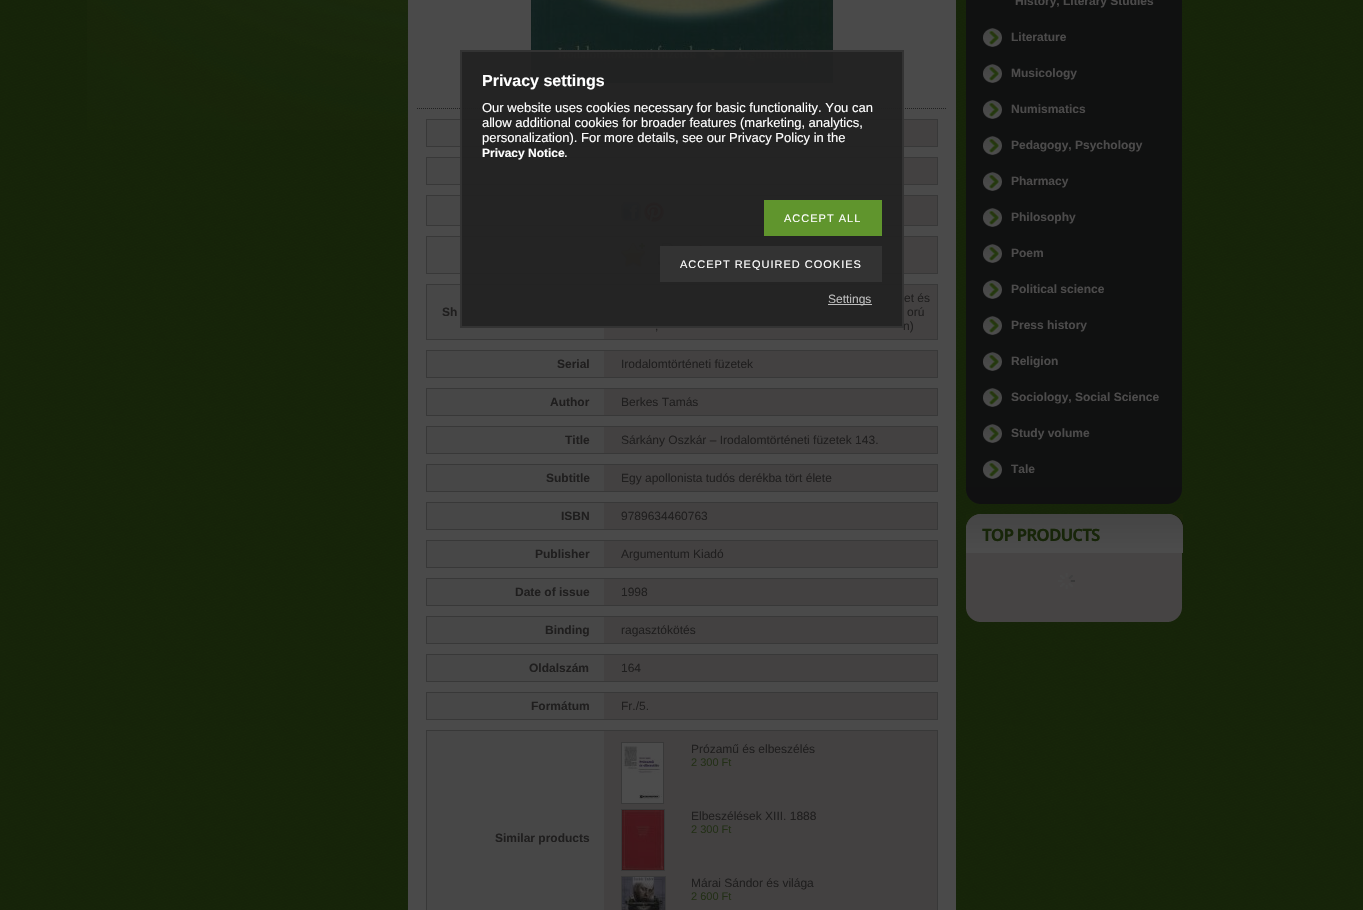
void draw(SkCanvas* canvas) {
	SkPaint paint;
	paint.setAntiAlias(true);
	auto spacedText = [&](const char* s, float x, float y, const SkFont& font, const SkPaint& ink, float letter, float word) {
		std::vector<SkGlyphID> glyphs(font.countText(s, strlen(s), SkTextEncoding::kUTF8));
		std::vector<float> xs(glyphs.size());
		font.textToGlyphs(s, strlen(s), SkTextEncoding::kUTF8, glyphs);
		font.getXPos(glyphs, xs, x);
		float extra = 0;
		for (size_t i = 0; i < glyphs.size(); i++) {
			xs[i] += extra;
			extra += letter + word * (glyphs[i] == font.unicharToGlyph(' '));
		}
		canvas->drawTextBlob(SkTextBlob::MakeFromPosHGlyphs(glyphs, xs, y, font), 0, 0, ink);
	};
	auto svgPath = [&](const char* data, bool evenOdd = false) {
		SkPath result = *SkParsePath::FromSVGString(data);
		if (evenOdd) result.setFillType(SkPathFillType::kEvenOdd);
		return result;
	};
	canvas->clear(0xffffffff);
	canvas->drawImageRect(SkImages::DeferredFromEncodedData(SkData::MakeFromFileName("img1.png")), SkRect::MakeXYWH(0, 0, 1363, 910), SkSamplingOptions());
	canvas->drawImageRect(SkImages::DeferredFromEncodedData(SkData::MakeFromFileName("img2.png")), SkRect::MakeXYWH(87, 0, 321, 130), SkSamplingOptions());
	paint.setColor(0xff4a4a4a);
	canvas->drawRect(SkRect::MakeXYWH(408, 0, 548, 910), paint);
	canvas->drawImageRect(SkImages::DeferredFromEncodedData(SkData::MakeFromFileName("img3.png")), SkRect::MakeXYWH(531, 0, 302, 83), SkSamplingOptions());
	paint.setStroke(true);
	paint.setStrokeWidth(1);
	paint.setColor(0xff202020);
	paint.setPathEffect(SkDashPathEffect::Make({{1, 1}}, 0));
	canvas->drawPath(svgPath("M417 108.5H947"), paint);
	paint.setPathEffect(nullptr);
	paint.setColor(0xff383838);
	canvas->drawRect(SkRect::MakeXYWH(426.5, 119.5, 511, 27), paint);
	paint.setStroke(false);
	paint.setColor(0xff474747);
	canvas->drawRect(SkRect::MakeXYWH(427, 120, 177, 26), paint);
	paint.setColor(0xff434141);
	canvas->drawRect(SkRect::MakeXYWH(604, 120, 333, 26), paint);
	paint.setStroke(true);
	paint.setColor(0xff383838);
	canvas->drawRect(SkRect::MakeXYWH(426.5, 157.5, 511, 27), paint);
	paint.setStroke(false);
	paint.setColor(0xff474747);
	canvas->drawRect(SkRect::MakeXYWH(427, 158, 177, 26), paint);
	paint.setColor(0xff434141);
	canvas->drawRect(SkRect::MakeXYWH(604, 158, 333, 26), paint);
	paint.setStroke(true);
	paint.setColor(0xff383838);
	canvas->drawRect(SkRect::MakeXYWH(426.5, 195.5, 511, 30), paint);
	paint.setStroke(false);
	paint.setColor(0xff474747);
	canvas->drawRect(SkRect::MakeXYWH(427, 196, 177, 29), paint);
	paint.setColor(0xff434141);
	canvas->drawRect(SkRect::MakeXYWH(604, 196, 333, 29), paint);
	canvas->drawImageRect(SkImages::DeferredFromEncodedData(SkData::MakeFromFileName("img4.png")), SkRect::MakeXYWH(621, 202, 20, 20), SkSamplingOptions());
	canvas->drawImageRect(SkImages::DeferredFromEncodedData(SkData::MakeFromFileName("img5.png")), SkRect::MakeXYWH(644, 202, 20, 20), SkSamplingOptions());
	paint.setStroke(true);
	paint.setColor(0xff383838);
	canvas->drawRect(SkRect::MakeXYWH(426.5, 236.5, 511, 37), paint);
	paint.setStroke(false);
	paint.setColor(0xff474747);
	canvas->drawRect(SkRect::MakeXYWH(427, 237, 177, 36), paint);
	paint.setColor(0xff434141);
	canvas->drawRect(SkRect::MakeXYWH(604, 237, 333, 36), paint);
	canvas->drawImageRect(SkImages::DeferredFromEncodedData(SkData::MakeFromFileName("img6.png")), SkRect::MakeXYWH(621, 243, 24, 24), SkSamplingOptions());
	canvas->drawImageRect(SkImages::DeferredFromEncodedData(SkData::MakeFromFileName("img7.png")), SkRect::MakeXYWH(658, 243, 15, 22), SkSamplingOptions());
	canvas->drawImageRect(SkImages::DeferredFromEncodedData(SkData::MakeFromFileName("img8.png")), SkRect::MakeXYWH(699, 245, 3, 1), SkSamplingOptions());
	paint.setStroke(true);
	paint.setColor(0xff383838);
	canvas->drawRect(SkRect::MakeXYWH(426.5, 284.5, 511, 55), paint);
	paint.setStroke(false);
	paint.setColor(0xff474747);
	canvas->drawRect(SkRect::MakeXYWH(427, 285, 177, 54), paint);
	SkFont f1(fontMgr->matchFamilyStyle("Liberation Sans", SkFontStyle::Bold()), 12);
	f1.setSubpixel(true);
	paint.setColor(0xff1f1e1e);
	canvas->drawString("Sh", 442, 316, f1, paint);
	paint.setColor(0xff434141);
	canvas->drawRect(SkRect::MakeXYWH(604, 285, 333, 54), paint);
	SkFont f2(fontMgr->matchFamilyStyle("Liberation Sans", SkFontStyle::Normal()), 12);
	f2.setSubpixel(true);
	paint.setColor(0xff1f1e1e);
	canvas->drawString("et és", 904, 302, f2, paint);
	canvas->drawString("orú", 907, 316, f2, paint);
	canvas->drawString(",", 655, 330, f2, paint);
	canvas->drawString("n)", 903, 330, f2, paint);
	paint.setStroke(true);
	paint.setColor(0xff383838);
	canvas->drawRect(SkRect::MakeXYWH(426.5, 350.5, 511, 27), paint);
	paint.setStroke(false);
	paint.setColor(0xff474747);
	canvas->drawRect(SkRect::MakeXYWH(427, 351, 177, 26), paint);
	paint.setColor(0xff1f1e1e);
	canvas->drawString("Serial", 557, 368, f1, paint);
	paint.setColor(0xff434141);
	canvas->drawRect(SkRect::MakeXYWH(604, 351, 333, 26), paint);
	paint.setColor(0xff1f1e1e);
	canvas->drawString("Irodalomtörténeti füzetek", 621, 368, f2, paint);
	paint.setStroke(true);
	paint.setColor(0xff383838);
	canvas->drawRect(SkRect::MakeXYWH(426.5, 388.5, 511, 27), paint);
	paint.setStroke(false);
	paint.setColor(0xff474747);
	canvas->drawRect(SkRect::MakeXYWH(427, 389, 177, 26), paint);
	paint.setColor(0xff1f1e1e);
	canvas->drawString("Author", 550, 406, f1, paint);
	paint.setColor(0xff434141);
	canvas->drawRect(SkRect::MakeXYWH(604, 389, 333, 26), paint);
	paint.setColor(0xff1f1e1e);
	canvas->drawString("Berkes Tamás", 621, 406, f2, paint);
	paint.setStroke(true);
	paint.setColor(0xff383838);
	canvas->drawRect(SkRect::MakeXYWH(426.5, 426.5, 511, 27), paint);
	paint.setStroke(false);
	paint.setColor(0xff474747);
	canvas->drawRect(SkRect::MakeXYWH(427, 427, 177, 26), paint);
	paint.setColor(0xff1f1e1e);
	canvas->drawString("Title", 565, 444, f1, paint);
	paint.setColor(0xff434141);
	canvas->drawRect(SkRect::MakeXYWH(604, 427, 333, 26), paint);
	paint.setColor(0xff1f1e1e);
	canvas->drawString("Sárkány Oszkár – Irodalomtörténeti füzetek 143.", 621, 444, f2, paint);
	paint.setStroke(true);
	paint.setColor(0xff383838);
	canvas->drawRect(SkRect::MakeXYWH(426.5, 464.5, 511, 27), paint);
	paint.setStroke(false);
	paint.setColor(0xff474747);
	canvas->drawRect(SkRect::MakeXYWH(427, 465, 177, 26), paint);
	paint.setColor(0xff1f1e1e);
	canvas->drawString("Subtitle", 546, 482, f1, paint);
	paint.setColor(0xff434141);
	canvas->drawRect(SkRect::MakeXYWH(604, 465, 333, 26), paint);
	paint.setColor(0xff1f1e1e);
	canvas->drawString("Egy apollonista tudós derékba tört élete", 621, 482, f2, paint);
	paint.setStroke(true);
	paint.setColor(0xff383838);
	canvas->drawRect(SkRect::MakeXYWH(426.5, 502.5, 511, 27), paint);
	paint.setStroke(false);
	paint.setColor(0xff474747);
	canvas->drawRect(SkRect::MakeXYWH(427, 503, 177, 26), paint);
	paint.setColor(0xff1f1e1e);
	canvas->drawString("ISBN", 561, 520, f1, paint);
	paint.setColor(0xff434141);
	canvas->drawRect(SkRect::MakeXYWH(604, 503, 333, 26), paint);
	paint.setColor(0xff1f1e1e);
	canvas->drawString("9789634460763", 621, 520, f2, paint);
	paint.setStroke(true);
	paint.setColor(0xff383838);
	canvas->drawRect(SkRect::MakeXYWH(426.5, 540.5, 511, 27), paint);
	paint.setStroke(false);
	paint.setColor(0xff474747);
	canvas->drawRect(SkRect::MakeXYWH(427, 541, 177, 26), paint);
	paint.setColor(0xff1f1e1e);
	canvas->drawString("Publisher", 535, 558, f1, paint);
	paint.setColor(0xff434141);
	canvas->drawRect(SkRect::MakeXYWH(604, 541, 333, 26), paint);
	paint.setColor(0xff1f1e1e);
	canvas->drawString("Argumentum Kiadó", 621, 558, f2, paint);
	paint.setStroke(true);
	paint.setColor(0xff383838);
	canvas->drawRect(SkRect::MakeXYWH(426.5, 578.5, 511, 27), paint);
	paint.setStroke(false);
	paint.setColor(0xff474747);
	canvas->drawRect(SkRect::MakeXYWH(427, 579, 177, 26), paint);
	paint.setColor(0xff1f1e1e);
	canvas->drawString("Date of issue", 515, 596, f1, paint);
	paint.setColor(0xff434141);
	canvas->drawRect(SkRect::MakeXYWH(604, 579, 333, 26), paint);
	paint.setColor(0xff1f1e1e);
	canvas->drawString("1998", 621, 596, f2, paint);
	paint.setStroke(true);
	paint.setColor(0xff383838);
	canvas->drawRect(SkRect::MakeXYWH(426.5, 616.5, 511, 27), paint);
	paint.setStroke(false);
	paint.setColor(0xff474747);
	canvas->drawRect(SkRect::MakeXYWH(427, 617, 177, 26), paint);
	paint.setColor(0xff1f1e1e);
	canvas->drawString("Binding", 545, 634, f1, paint);
	paint.setColor(0xff434141);
	canvas->drawRect(SkRect::MakeXYWH(604, 617, 333, 26), paint);
	paint.setColor(0xff1f1e1e);
	canvas->drawString("ragasztókötés", 621, 634, f2, paint);
	paint.setStroke(true);
	paint.setColor(0xff383838);
	canvas->drawRect(SkRect::MakeXYWH(426.5, 654.5, 511, 27), paint);
	paint.setStroke(false);
	paint.setColor(0xff474747);
	canvas->drawRect(SkRect::MakeXYWH(427, 655, 177, 26), paint);
	paint.setColor(0xff1f1e1e);
	canvas->drawString("Oldalszám", 529, 672, f1, paint);
	paint.setColor(0xff434141);
	canvas->drawRect(SkRect::MakeXYWH(604, 655, 333, 26), paint);
	paint.setColor(0xff1f1e1e);
	canvas->drawString("164", 621, 672, f2, paint);
	paint.setStroke(true);
	paint.setColor(0xff383838);
	canvas->drawRect(SkRect::MakeXYWH(426.5, 692.5, 511, 27), paint);
	paint.setStroke(false);
	paint.setColor(0xff474747);
	canvas->drawRect(SkRect::MakeXYWH(427, 693, 177, 26), paint);
	paint.setColor(0xff1f1e1e);
	canvas->drawString("Formátum", 531, 710, f1, paint);
	paint.setColor(0xff434141);
	canvas->drawRect(SkRect::MakeXYWH(604, 693, 333, 26), paint);
	paint.setColor(0xff1f1e1e);
	canvas->drawString("Fr./5.", 621, 710, f2, paint);
	paint.setStroke(true);
	paint.setColor(0xff383838);
	canvas->drawRect(SkRect::MakeXYWH(426.5, 730.5, 511, 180), paint);
	paint.setStroke(false);
	paint.setColor(0xff474747);
	canvas->drawRect(SkRect::MakeXYWH(427, 731, 177, 179), paint);
	paint.setColor(0xff1f1e1e);
	canvas->drawString("Similar products", 495, 842, f1, paint);
	paint.setColor(0xff434141);
	canvas->drawRect(SkRect::MakeXYWH(604, 731, 333, 179), paint);
	paint.setStroke(true);
	paint.setColor(0xff383838);
	canvas->drawRect(SkRect::MakeXYWH(621.5, 742.5, 42, 61), paint);
	canvas->drawImageRect(SkImages::DeferredFromEncodedData(SkData::MakeFromFileName("img9.png")), SkRect::MakeXYWH(622, 743, 41, 60), SkSamplingOptions());
	paint.setStroke(false);
	paint.setColor(0xff1f1e1e);
	canvas->drawString("Prózamű és elbeszélés", 691, 753, f2, paint);
	SkFont f3(fontMgr->matchFamilyStyle("Liberation Sans", SkFontStyle::Normal()), 11);
	f3.setSubpixel(true);
	paint.setColor(0xff232f17);
	canvas->drawString("2 300 Ft", 691, 766, f3, paint);
	paint.setStroke(true);
	paint.setColor(0xff383838);
	canvas->drawRect(SkRect::MakeXYWH(621.5, 809.5, 43, 61), paint);
	canvas->drawImageRect(SkImages::DeferredFromEncodedData(SkData::MakeFromFileName("img10.png")), SkRect::MakeXYWH(622, 810, 42, 60), SkSamplingOptions());
	paint.setStroke(false);
	paint.setColor(0xff1f1e1e);
	canvas->drawString("Elbeszélések XIII. 1888", 691, 820, f2, paint);
	paint.setColor(0xff232f17);
	canvas->drawString("2 300 Ft", 691, 833, f3, paint);
	paint.setStroke(true);
	paint.setColor(0xff383838);
	canvas->drawRect(SkRect::MakeXYWH(621.5, 876.5, 44, 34), paint);
	canvas->drawImageRect(SkImages::DeferredFromEncodedData(SkData::MakeFromFileName("img11.png")), SkRect::MakeXYWH(622, 877, 43, 33), SkSamplingOptions());
	paint.setStroke(false);
	paint.setColor(0xff1f1e1e);
	canvas->drawString("Márai Sándor és világa", 691, 887, f2, paint);
	paint.setColor(0xff232f17);
	canvas->drawString("2 600 Ft", 691, 900, f3, paint);
	paint.setColor(0xff101111);
	canvas->drawRect(SkRect::MakeXYWH(966, 0, 216, 487), paint);
	paint.setColor(0xff4c4b4b);
	canvas->drawString("History, Literary Studies", 1015, 5, f1, paint);
	canvas->drawImageRect(SkImages::DeferredFromEncodedData(SkData::MakeFromFileName("img12.png")), SkRect::MakeXYWH(983, 28, 19, 19), SkSamplingOptions());
	canvas->drawString("Literature", 1011, 41, f1, paint);
	canvas->drawImageRect(SkImages::DeferredFromEncodedData(SkData::MakeFromFileName("img12.png")), SkRect::MakeXYWH(983, 64, 19, 19), SkSamplingOptions());
	canvas->drawString("Musicology", 1011, 77, f1, paint);
	canvas->drawImageRect(SkImages::DeferredFromEncodedData(SkData::MakeFromFileName("img12.png")), SkRect::MakeXYWH(983, 100, 19, 19), SkSamplingOptions());
	canvas->drawString("Numismatics", 1011, 113, f1, paint);
	canvas->drawImageRect(SkImages::DeferredFromEncodedData(SkData::MakeFromFileName("img12.png")), SkRect::MakeXYWH(983, 136, 19, 19), SkSamplingOptions());
	canvas->drawString("Pedagogy, Psychology", 1011, 149, f1, paint);
	canvas->drawImageRect(SkImages::DeferredFromEncodedData(SkData::MakeFromFileName("img12.png")), SkRect::MakeXYWH(983, 172, 19, 19), SkSamplingOptions());
	canvas->drawString("Pharmacy", 1011, 185, f1, paint);
	canvas->drawImageRect(SkImages::DeferredFromEncodedData(SkData::MakeFromFileName("img12.png")), SkRect::MakeXYWH(983, 208, 19, 19), SkSamplingOptions());
	canvas->drawString("Philosophy", 1011, 221, f1, paint);
	canvas->drawImageRect(SkImages::DeferredFromEncodedData(SkData::MakeFromFileName("img12.png")), SkRect::MakeXYWH(983, 244, 19, 19), SkSamplingOptions());
	canvas->drawString("Poem", 1011, 257, f1, paint);
	canvas->drawImageRect(SkImages::DeferredFromEncodedData(SkData::MakeFromFileName("img12.png")), SkRect::MakeXYWH(983, 280, 19, 19), SkSamplingOptions());
	canvas->drawString("Political science", 1011, 293, f1, paint);
	canvas->drawImageRect(SkImages::DeferredFromEncodedData(SkData::MakeFromFileName("img12.png")), SkRect::MakeXYWH(983, 316, 19, 19), SkSamplingOptions());
	canvas->drawString("Press history", 1011, 329, f1, paint);
	canvas->drawImageRect(SkImages::DeferredFromEncodedData(SkData::MakeFromFileName("img12.png")), SkRect::MakeXYWH(983, 352, 19, 19), SkSamplingOptions());
	canvas->drawString("Religion", 1011, 365, f1, paint);
	canvas->drawImageRect(SkImages::DeferredFromEncodedData(SkData::MakeFromFileName("img12.png")), SkRect::MakeXYWH(983, 388, 19, 19), SkSamplingOptions());
	canvas->drawString("Sociology, Social Science", 1011, 401, f1, paint);
	canvas->drawImageRect(SkImages::DeferredFromEncodedData(SkData::MakeFromFileName("img12.png")), SkRect::MakeXYWH(983, 424, 19, 19), SkSamplingOptions());
	canvas->drawString("Study volume", 1011, 437, f1, paint);
	canvas->drawImageRect(SkImages::DeferredFromEncodedData(SkData::MakeFromFileName("img12.png")), SkRect::MakeXYWH(983, 460, 19, 19), SkSamplingOptions());
	canvas->drawString("Tale", 1011, 473, f1, paint);
	canvas->drawImageRect(SkImages::DeferredFromEncodedData(SkData::MakeFromFileName("img13.png")), SkRect::MakeXYWH(966, 487, 216, 17), SkSamplingOptions());
	canvas->drawImageRect(SkImages::DeferredFromEncodedData(SkData::MakeFromFileName("img14.png")), SkRect::MakeXYWH(966, 514, 217, 39), SkSamplingOptions());
	SkFont f4(fontMgr->matchFamilyStyle("Open Sans", SkFontStyle::Bold()), 17);
	f4.setSubpixel(true);
	paint.setColor(0xff172509);
	spacedText("TOP PRODUCTS", 982, 541, f4, paint, -1, 0);
	paint.setColor(0xff464444);
	canvas->drawRect(SkRect::MakeXYWH(966, 553, 216, 52), paint);
	canvas->drawImageRect(SkImages::DeferredFromEncodedData(SkData::MakeFromFileName("img15.png")), SkRect::MakeXYWH(1058, 573, 17, 16), SkSamplingOptions());
	canvas->drawImageRect(SkImages::DeferredFromEncodedData(SkData::MakeFromFileName("img16.png")), SkRect::MakeXYWH(966, 605, 216, 17), SkSamplingOptions());
	paint.setColor(0xf2222222);
	canvas->drawRect(SkRect::MakeXYWH(461, 51, 442, 276), paint);
	paint.setStroke(true);
	paint.setStrokeWidth(2);
	paint.setColor(0xff333333);
	canvas->drawRect(SkRect::MakeXYWH(461, 51, 442, 276), paint);
	SkFont f5(fontMgr->matchFamilyStyle("Liberation Sans", SkFontStyle::Bold()), 16);
	f5.setSubpixel(true);
	paint.setStroke(false);
	paint.setColor(0xffffffff);
	canvas->drawString("Privacy settings", 482, 86, f5, paint);
	SkFont f6(fontMgr->matchFamilyStyle("Liberation Sans", SkFontStyle::Normal()), 13);
	f6.setSubpixel(true);
	canvas->drawString("Our website uses cookies necessary for basic functionality. You can", 482, 112, f6, paint);
	canvas->drawString("allow additional cookies for broader features (marketing, analytics,", 482, 127, f6, paint);
	canvas->drawString("personalization). For more details, see our Privacy Policy in the", 482, 142, f6, paint);
	canvas->drawString("Privacy Notice", 482, 157, f1, paint);
	canvas->drawString(".", 564, 157, f6, paint);
	paint.setColor(0xff60952d);
	canvas->drawRect(SkRect::MakeXYWH(764, 200, 118, 36), paint);
	paint.setColor(0xffffffff);
	spacedText("ACCEPT ALL", 784, 222, f3, paint, 1, 0);
	paint.setColor(0xff333333);
	canvas->drawRect(SkRect::MakeXYWH(660, 246, 222, 36), paint);
	paint.setColor(0xffffffff);
	spacedText("ACCEPT REQUIRED COOKIES", 680, 268, f3, paint, 1, 0);
	paint.setColor(0xffbdbdbd);
	canvas->drawRect(SkRect::MakeXYWH(828, 304, 44, 1), paint);
	canvas->drawString("Settings", 828, 303, f2, paint);
}
